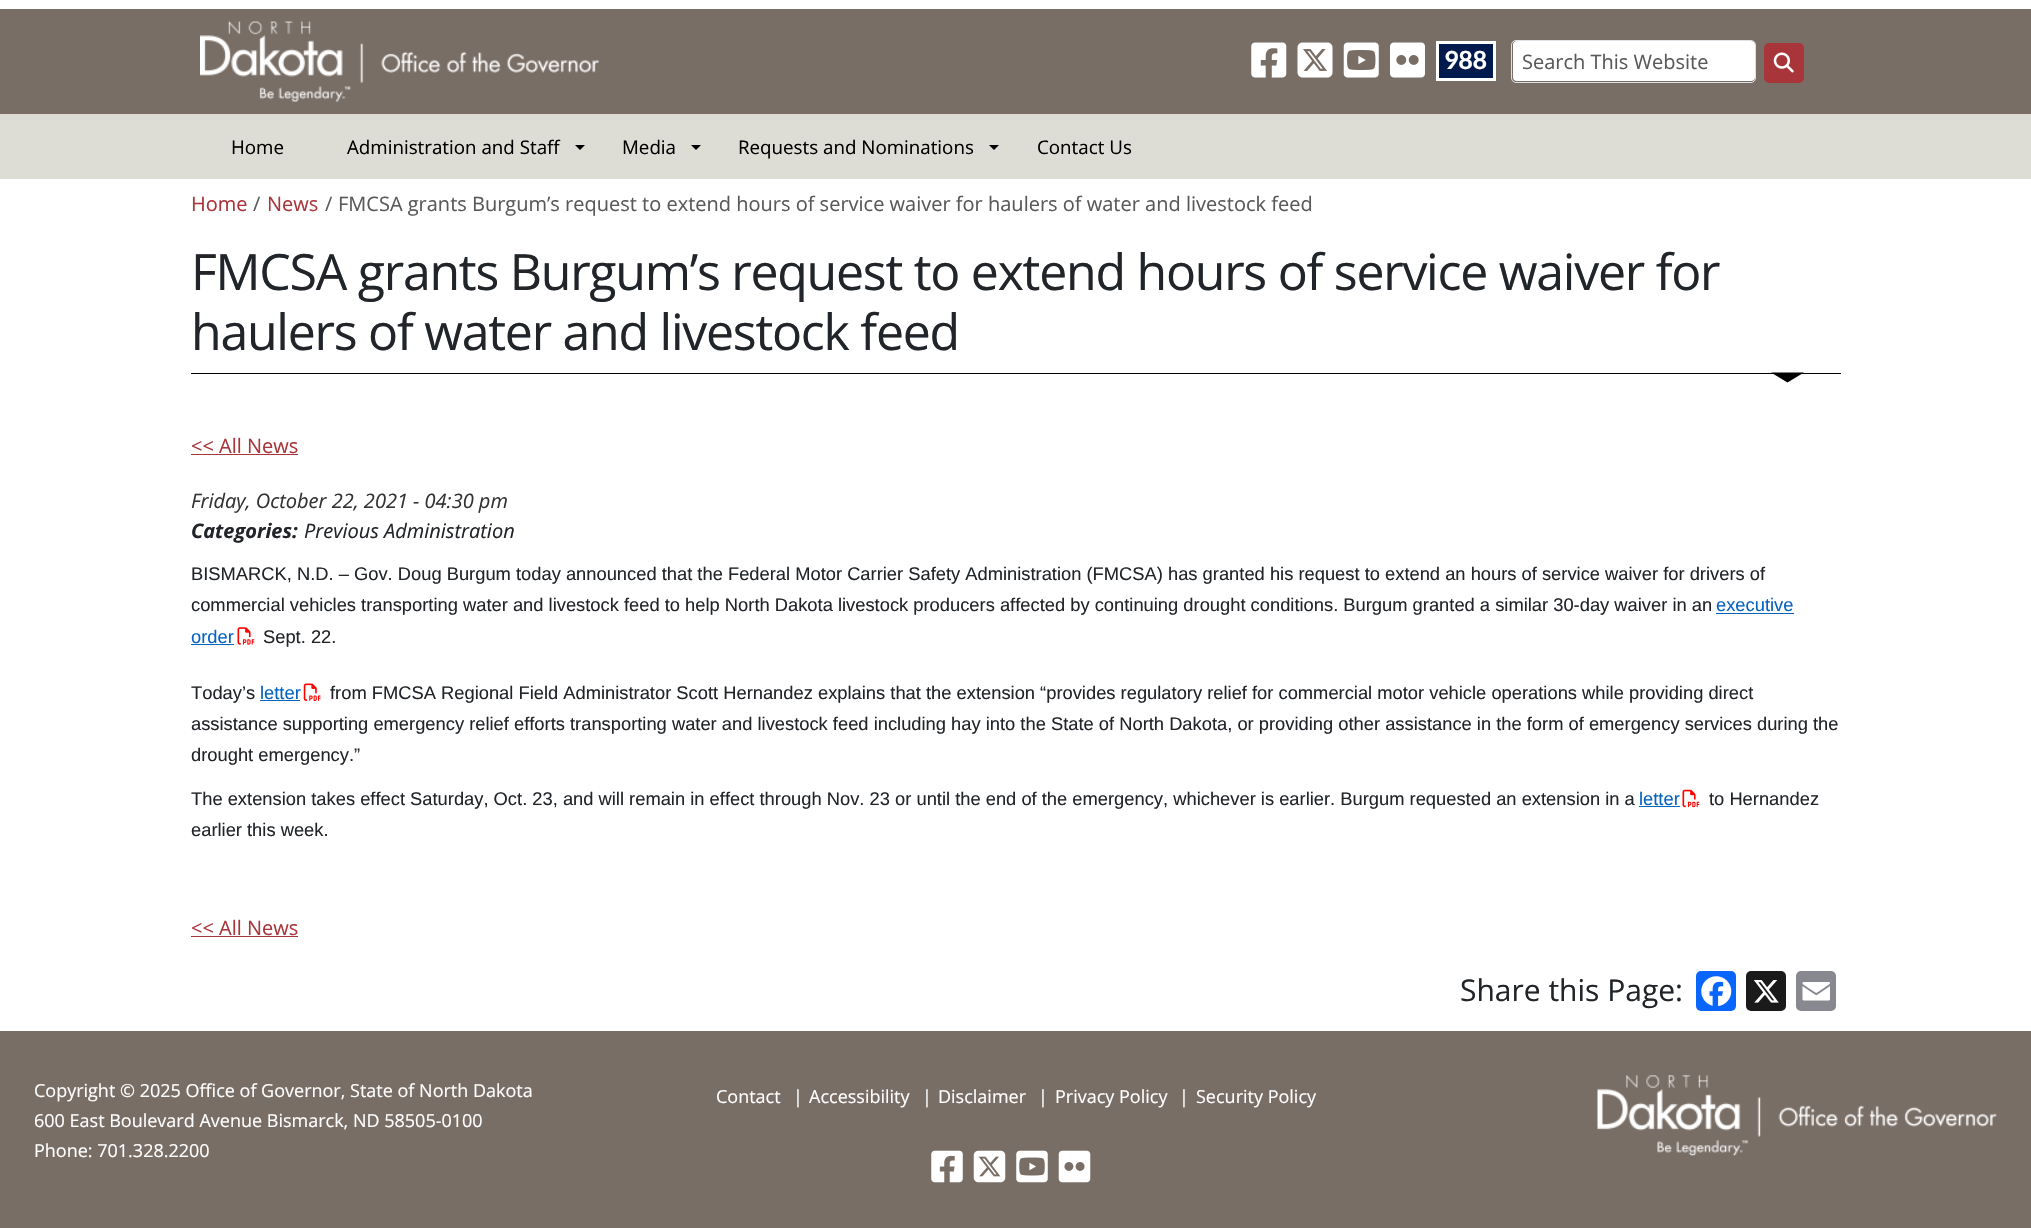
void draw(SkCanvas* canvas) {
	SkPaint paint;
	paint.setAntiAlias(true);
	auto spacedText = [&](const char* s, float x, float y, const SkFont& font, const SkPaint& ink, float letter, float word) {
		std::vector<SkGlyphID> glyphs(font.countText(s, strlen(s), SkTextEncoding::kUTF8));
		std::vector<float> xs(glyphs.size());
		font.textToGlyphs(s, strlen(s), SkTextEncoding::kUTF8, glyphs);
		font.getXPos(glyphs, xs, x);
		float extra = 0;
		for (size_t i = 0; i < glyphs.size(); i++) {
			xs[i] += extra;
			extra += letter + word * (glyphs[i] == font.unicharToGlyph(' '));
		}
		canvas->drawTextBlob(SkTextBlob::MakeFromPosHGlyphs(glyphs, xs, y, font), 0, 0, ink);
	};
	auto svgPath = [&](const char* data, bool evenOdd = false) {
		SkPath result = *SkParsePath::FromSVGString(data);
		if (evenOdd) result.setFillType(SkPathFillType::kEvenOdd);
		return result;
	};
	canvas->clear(0xffffffff);
	paint.setColor(0xff796e66);
	canvas->drawRect(SkRect::MakeXYWH(0, 9, 2031, 105), paint);
	canvas->drawImageRect(SkImages::DeferredFromEncodedData(SkData::MakeFromFileName("img1.png")), SkRect::MakeXYWH(200, 21, 399, 81), SkSamplingOptions());
	canvas->drawImageRect(SkImages::DeferredFromEncodedData(SkData::MakeFromFileName("img2.png")), SkRect::MakeXYWH(1251, 42, 36, 36), SkSamplingOptions());
	canvas->drawImageRect(SkImages::DeferredFromEncodedData(SkData::MakeFromFileName("img3.png")), SkRect::MakeXYWH(1297, 42, 36, 36), SkSamplingOptions());
	canvas->drawImageRect(SkImages::DeferredFromEncodedData(SkData::MakeFromFileName("img4.png")), SkRect::MakeXYWH(1343, 42, 36, 36), SkSamplingOptions());
	canvas->drawImageRect(SkImages::DeferredFromEncodedData(SkData::MakeFromFileName("img5.png")), SkRect::MakeXYWH(1390, 42, 35, 36), SkSamplingOptions());
	paint.setColor(0xff001a4e);
	canvas->drawRect(SkRect::MakeXYWH(1437.5, 42.5, 57, 37), paint);
	paint.setStroke(true);
	paint.setStrokeWidth(3);
	paint.setColor(0xffffffff);
	canvas->drawRect(SkRect::MakeXYWH(1437.5, 42.5, 57, 37), paint);
	SkFont f1(fontMgr->matchFamilyStyle("Aleo", SkFontStyle::Bold()), 25);
	f1.setSubpixel(true);
	paint.setStroke(false);
	canvas->drawString("988", 1445, 69, f1, paint);
	canvas->drawRoundRect(SkRect::MakeXYWH(1513, 41, 242, 40), 4, 4, paint);
	paint.setStroke(true);
	paint.setStrokeWidth(1);
	paint.setColor(0xffdee2e6);
	canvas->drawRoundRect(SkRect::MakeXYWH(1511.5, 40.5, 244, 42), 4.5, 4.5, paint);
	SkFont f2(fontMgr->matchFamilyStyle("Open Sans", SkFontStyle::Normal()), 20);
	f2.setSubpixel(true);
	paint.setStroke(false);
	paint.setColor(0xff595959);
	canvas->drawString("Search This Website", 1522, 69, f2, paint);
	paint.setColor(0xffa8353a);
	canvas->drawRoundRect(SkRect::MakeXYWH(1764, 43, 40, 40), 5, 5, paint);
	canvas->drawImageRect(SkImages::DeferredFromEncodedData(SkData::MakeFromFileName("img6.png")), SkRect::MakeXYWH(1773, 52, 21, 21), SkSamplingOptions());
	paint.setColor(0xffddddd5);
	canvas->drawRect(SkRect::MakeXYWH(0, 114, 2031, 65), paint);
	SkFont f3(fontMgr->matchFamilyStyle("Open Sans", SkFontStyle::Normal()), 18.75);
	f3.setSubpixel(true);
	paint.setColor(0xff000000);
	canvas->drawString("Home", 231, 154, f3, paint);
	canvas->drawString("Administration and Staff", 347, 154, f3, paint);
	canvas->drawPath(svgPath("M575 145H585L580 150Z"), paint);
	canvas->drawString("Media", 622, 154, f3, paint);
	canvas->drawPath(svgPath("M691 145H701L696 150Z"), paint);
	canvas->drawString("Requests and Nominations", 738, 154, f3, paint);
	canvas->drawPath(svgPath("M989 145H999L994 150Z"), paint);
	canvas->drawString("Contact Us", 1037, 154, f3, paint);
	paint.setColor(0xffa8353a);
	canvas->drawString("Home", 191, 211, f2, paint);
	paint.setColor(0xff595c5f);
	canvas->drawString("/", 253, 211, f2, paint);
	paint.setColor(0xffa8353a);
	canvas->drawString("News", 267, 211, f2, paint);
	paint.setColor(0xff595c5f);
	canvas->drawString("/", 325, 211, f2, paint);
	paint.setColor(0xff595959);
	canvas->drawString("FMCSA grants Burgum’s request to extend hours of service waiver for haulers of water and livestock feed", 338, 211, f2, paint);
	paint.setColor(0xff000000);
	canvas->drawRect(SkRect::MakeXYWH(191, 373, 1650, 1), paint);
	SkFont f4(fontMgr->matchFamilyStyle("Open Sans", SkFontStyle::Normal()), 50);
	f4.setSubpixel(true);
	paint.setColor(0xff212529);
	spacedText("FMCSA grants Burgum’s request to extend hours of service waiver for", 191, 290, f4, paint, -1.25, 0);
	spacedText("haulers of water and livestock feed", 191, 350, f4, paint, -1.25, 0);
	paint.setColor(0xff000000);
	canvas->drawPath(svgPath("M1771 372.5H1804L1787.5 382.5Z"), paint);
	paint.setColor(0xffa8353a);
	canvas->drawString("<< All News", 191, 453, f2, paint);
	canvas->drawRect(SkRect::MakeXYWH(191, 454, 107, 1), paint);
	SkFont f5(fontMgr->matchFamilyStyle("Open Sans", SkFontStyle::Italic()), 20);
	f5.setSubpixel(true);
	paint.setColor(0xff333333);
	canvas->drawString("Friday, October 22, 2021 - 04:30 pm", 191, 508, f5, paint);
	SkFont f6(fontMgr->matchFamilyStyle("Open Sans", SkFontStyle::BoldItalic()), 20);
	f6.setSubpixel(true);
	paint.setColor(0xff212529);
	canvas->drawString("Categories:", 191, 538, f6, paint);
	canvas->drawString("Previous Administration", 304, 538, f5, paint);
	SkFont f7(fontMgr->matchFamilyStyle("Liberation Sans", SkFontStyle::Normal()), 18.33);
	f7.setSubpixel(true);
	canvas->drawString("BISMARCK, N.D. – Gov. Doug Burgum today announced that the Federal Motor Carrier Safety Administration (FMCSA) has granted his request to extend an hours of service waiver for drivers of", 191, 580, f7, paint);
	canvas->drawString("commercial vehicles transporting water and livestock feed to help North Dakota livestock producers affected by continuing drought conditions. Burgum granted a similar 30-day waiver in an", 191, 611, f7, paint);
	paint.setColor(0xff0563c1);
	canvas->drawString("executive", 1716, 611, f7, paint);
	canvas->drawRect(SkRect::MakeXYWH(1716, 613, 78, 1), paint);
	canvas->drawString("order", 191, 643, f7, paint);
	canvas->drawRect(SkRect::MakeXYWH(191, 644, 43, 1), paint);
	canvas->drawImageRect(SkImages::DeferredFromEncodedData(SkData::MakeFromFileName("img7.png")), SkRect::MakeXYWH(237, 627, 18, 18), SkSamplingOptions());
	paint.setColor(0xff212529);
	canvas->drawString("Sept. 22.", 263, 643, f7, paint);
	canvas->drawString("Today’s", 191, 699, f7, paint);
	paint.setColor(0xff0563c1);
	canvas->drawString("letter", 260, 699, f7, paint);
	canvas->drawRect(SkRect::MakeXYWH(260, 700, 40, 1), paint);
	canvas->drawImageRect(SkImages::DeferredFromEncodedData(SkData::MakeFromFileName("img8.png")), SkRect::MakeXYWH(303, 683, 18, 18), SkSamplingOptions());
	paint.setColor(0xff212529);
	canvas->drawString("from FMCSA Regional Field Administrator Scott Hernandez explains that the extension “provides regulatory relief for commercial motor vehicle operations while providing direct", 330, 699, f7, paint);
	canvas->drawString("assistance supporting emergency relief efforts transporting water and livestock feed including hay into the State of North Dakota, or providing other assistance in the form of emergency services during the", 191, 730, f7, paint);
	canvas->drawString("drought emergency.”", 191, 761, f7, paint);
	canvas->drawString("The extension takes effect Saturday, Oct. 23, and will remain in effect through Nov. 23 or until the end of the emergency, whichever is earlier. Burgum requested an extension in a", 191, 805, f7, paint);
	paint.setColor(0xff0563c1);
	canvas->drawString("letter", 1639, 805, f7, paint);
	canvas->drawRect(SkRect::MakeXYWH(1639, 806, 41, 1), paint);
	canvas->drawImageRect(SkImages::DeferredFromEncodedData(SkData::MakeFromFileName("img9.png")), SkRect::MakeXYWH(1682, 789, 18, 19), SkSamplingOptions());
	paint.setColor(0xff212529);
	canvas->drawString("to Hernandez", 1709, 805, f7, paint);
	canvas->drawString("earlier this week.", 191, 836, f7, paint);
	paint.setColor(0xffa8353a);
	canvas->drawString("<< All News", 191, 935, f2, paint);
	canvas->drawRect(SkRect::MakeXYWH(191, 936, 107, 1), paint);
	SkFont f8(fontMgr->matchFamilyStyle("Open Sans", SkFontStyle::Normal()), 30);
	f8.setSubpixel(true);
	paint.setColor(0xff212529);
	canvas->drawString("Share this Page:", 1460, 1001, f8, paint);
	paint.setColor(0xff0866ff);
	canvas->drawRoundRect(SkRect::MakeXYWH(1696, 971, 40, 40), 5, 5, paint);
	canvas->drawImageRect(SkImages::DeferredFromEncodedData(SkData::MakeFromFileName("img10.png")), SkRect::MakeXYWH(1701, 976, 31, 31), SkSamplingOptions());
	paint.setColor(0xff1a1a1a);
	canvas->drawRoundRect(SkRect::MakeXYWH(1746, 971, 40, 40), 5, 5, paint);
	canvas->drawImageRect(SkImages::DeferredFromEncodedData(SkData::MakeFromFileName("img11.png")), SkRect::MakeXYWH(1753, 980, 26, 23), SkSamplingOptions());
	paint.setColor(0xff888990);
	canvas->drawRoundRect(SkRect::MakeXYWH(1796, 971, 40, 40), 5, 5, paint);
	canvas->drawImageRect(SkImages::DeferredFromEncodedData(SkData::MakeFromFileName("img12.png")), SkRect::MakeXYWH(1802, 982, 28, 19), SkSamplingOptions());
	paint.setColor(0xff796e66);
	canvas->drawRect(SkRect::MakeXYWH(0, 1031, 2031, 197), paint);
	SkFont f9(fontMgr->matchFamilyStyle("Open Sans", SkFontStyle::Normal()), 18);
	f9.setSubpixel(true);
	paint.setColor(0xffffffff);
	canvas->drawString("Copyright © 2025 Office of Governor, State of North Dakota", 34, 1097, f9, paint);
	canvas->drawString("600 East Boulevard Avenue Bismarck, ND 58505-0100", 34, 1127, f9, paint);
	canvas->drawString("Phone: 701.328.2200", 34, 1157, f9, paint);
	canvas->drawString("Contact", 716, 1103, f9, paint);
	canvas->drawString("|", 793, 1103, f9, paint);
	canvas->drawString("Accessibility", 809, 1103, f9, paint);
	canvas->drawString("|", 922, 1103, f9, paint);
	canvas->drawString("Disclaimer", 938, 1103, f9, paint);
	canvas->drawString("|", 1038, 1103, f9, paint);
	canvas->drawString("Privacy Policy", 1055, 1103, f9, paint);
	canvas->drawString("|", 1179, 1103, f9, paint);
	canvas->drawString("Security Policy", 1196, 1103, f9, paint);
	canvas->drawImageRect(SkImages::DeferredFromEncodedData(SkData::MakeFromFileName("img13.png")), SkRect::MakeXYWH(931, 1150, 32, 33), SkSamplingOptions());
	canvas->drawImageRect(SkImages::DeferredFromEncodedData(SkData::MakeFromFileName("img14.png")), SkRect::MakeXYWH(973, 1150, 33, 33), SkSamplingOptions());
	canvas->drawImageRect(SkImages::DeferredFromEncodedData(SkData::MakeFromFileName("img15.png")), SkRect::MakeXYWH(1016, 1150, 32, 33), SkSamplingOptions());
	canvas->drawImageRect(SkImages::DeferredFromEncodedData(SkData::MakeFromFileName("img16.png")), SkRect::MakeXYWH(1058, 1150, 33, 33), SkSamplingOptions());
	canvas->drawImageRect(SkImages::DeferredFromEncodedData(SkData::MakeFromFileName("img17.png")), SkRect::MakeXYWH(1597, 1075, 400, 81), SkSamplingOptions());
}
